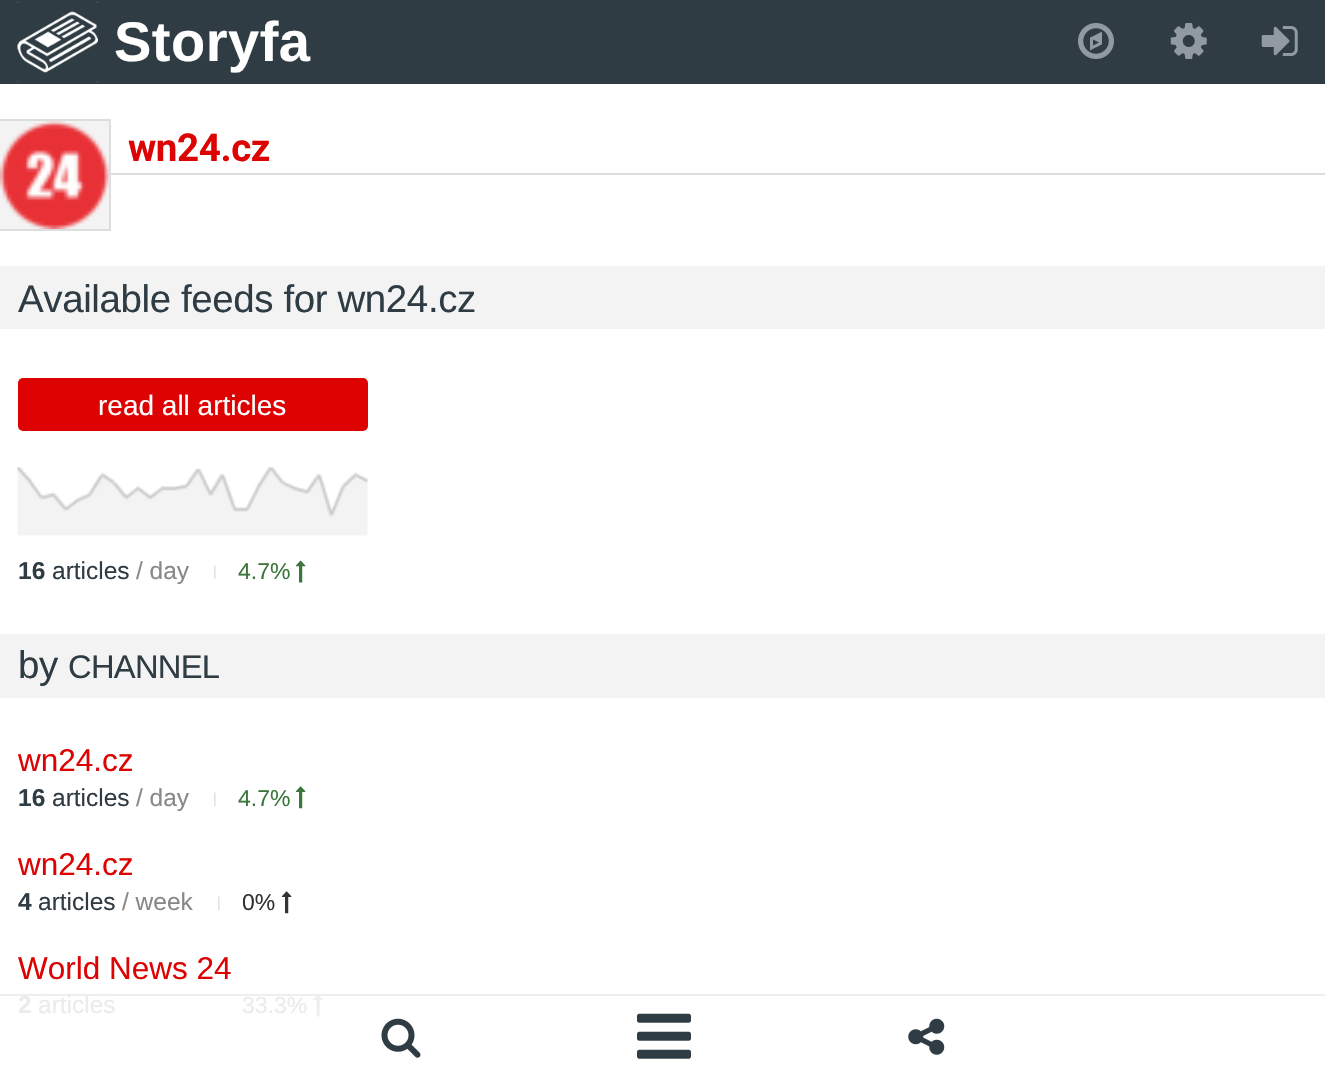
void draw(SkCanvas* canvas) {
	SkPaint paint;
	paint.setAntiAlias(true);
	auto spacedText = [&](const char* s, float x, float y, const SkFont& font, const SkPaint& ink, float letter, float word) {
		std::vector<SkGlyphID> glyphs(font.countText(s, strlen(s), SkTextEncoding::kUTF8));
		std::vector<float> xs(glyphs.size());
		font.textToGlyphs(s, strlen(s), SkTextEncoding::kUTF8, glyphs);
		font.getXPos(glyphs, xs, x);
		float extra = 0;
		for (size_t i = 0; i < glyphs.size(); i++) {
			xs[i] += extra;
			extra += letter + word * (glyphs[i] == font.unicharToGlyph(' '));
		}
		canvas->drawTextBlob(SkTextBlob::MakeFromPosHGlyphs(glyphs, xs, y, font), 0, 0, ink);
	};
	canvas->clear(0xffffffff);
	paint.setColor(0xff303c44);
	canvas->drawRect(SkRect::MakeXYWH(0, 0, 1325, 84), paint);
	canvas->drawImageRect(SkImages::DeferredFromEncodedData(SkData::MakeFromFileName("img1.png")), SkRect::MakeXYWH(17, 1, 81, 82), SkSamplingOptions());
	SkFont f1(fontMgr->matchFamilyStyle("Liberation Sans", SkFontStyle::Bold()), 56);
	f1.setSubpixel(true);
	paint.setColor(0xffffffff);
	spacedText("Storyfa", 114, 61, f1, paint, 0.5, 0);
	canvas->drawImageRect(SkImages::DeferredFromEncodedData(SkData::MakeFromFileName("img2.png")), SkRect::MakeXYWH(1078, 23, 36, 36), SkSamplingOptions());
	canvas->drawImageRect(SkImages::DeferredFromEncodedData(SkData::MakeFromFileName("img3.png")), SkRect::MakeXYWH(1170, 23, 37, 36), SkSamplingOptions());
	canvas->drawImageRect(SkImages::DeferredFromEncodedData(SkData::MakeFromFileName("img4.png")), SkRect::MakeXYWH(1261, 26, 37, 30), SkSamplingOptions());
	paint.setColor(0xfff3f3f3);
	canvas->drawRect(SkRect::MakeXYWH(0, 121, 109, 108), paint);
	canvas->drawImageRect(SkImages::DeferredFromEncodedData(SkData::MakeFromFileName("img5.png")), SkRect::MakeXYWH(0, 121, 109, 108), SkSamplingOptions());
	paint.setColor(0xffdddddd);
	canvas->drawRect(SkRect::MakeXYWH(0, 119, 110, 2), paint);
	canvas->drawRect(SkRect::MakeXYWH(109, 119, 2, 112), paint);
	canvas->drawRect(SkRect::MakeXYWH(0, 229, 110, 2), paint);
	canvas->drawRect(SkRect::MakeXYWH(110, 173, 1215, 2), paint);
	SkFont f2(fontMgr->matchFamilyStyle("Roboto", SkFontStyle::Bold()), 38.5);
	f2.setSubpixel(true);
	paint.setColor(0xffdd0303);
	spacedText("wn24.cz", 128, 161, f2, paint, -0.4, 0);
	paint.setColor(0xfff3f3f3);
	canvas->drawRect(SkRect::MakeXYWH(0, 266, 1325, 63), paint);
	SkFont f3(fontMgr->matchFamilyStyle("Liberation Sans", SkFontStyle::Normal()), 38.5);
	f3.setSubpixel(true);
	paint.setColor(0xff303c44);
	spacedText("Available feeds for wn24.cz", 18, 312, f3, paint, -0.4, 0);
	paint.setColor(0xffdd0303);
	canvas->drawRoundRect(SkRect::MakeXYWH(19, 379, 348, 51), 4, 4, paint);
	paint.setStroke(true);
	paint.setStrokeWidth(2);
	canvas->drawRoundRect(SkRect::MakeXYWH(19, 379, 348, 51), 4, 4, paint);
	SkFont f4(fontMgr->matchFamilyStyle("Liberation Sans", SkFontStyle::Normal()), 28);
	f4.setSubpixel(true);
	paint.setStroke(false);
	paint.setColor(0xffffffff);
	canvas->drawString("read all articles", 98, 415, f4, paint);
	canvas->drawImageRect(SkImages::DeferredFromEncodedData(SkData::MakeFromFileName("img6.png")), SkRect::MakeXYWH(17, 467, 351, 69), SkSamplingOptions());
	SkFont f5(fontMgr->matchFamilyStyle("Liberation Sans", SkFontStyle::Bold()), 24.5);
	f5.setSubpixel(true);
	paint.setColor(0xff303c44);
	canvas->drawString("16", 18, 579, f5, paint);
	SkFont f6(fontMgr->matchFamilyStyle("Liberation Sans", SkFontStyle::Normal()), 24.5);
	f6.setSubpixel(true);
	canvas->drawString("articles", 52, 579, f6, paint);
	paint.setColor(0xff888888);
	canvas->drawString("/ day", 136, 579, f6, paint);
	SkFont f7(fontMgr->matchFamilyStyle("Liberation Sans", SkFontStyle::Normal()), 14);
	f7.setSubpixel(true);
	paint.setColor(0xffdddddd);
	canvas->drawString("|", 213, 576, f7, paint);
	SkFont f8(fontMgr->matchFamilyStyle("Liberation Sans", SkFontStyle::Normal()), 23);
	f8.setSubpixel(true);
	paint.setColor(0xff3c763d);
	canvas->drawString("4.7%", 238, 579, f8, paint);
	canvas->drawImageRect(SkImages::DeferredFromEncodedData(SkData::MakeFromFileName("img7.png")), SkRect::MakeXYWH(295, 560, 11, 23), SkSamplingOptions());
	paint.setColor(0xfff3f3f3);
	canvas->drawRect(SkRect::MakeXYWH(0, 634, 1325, 64), paint);
	paint.setColor(0xff303c44);
	spacedText("by", 18, 678, f3, paint, -0.4, 0);
	SkFont f9(fontMgr->matchFamilyStyle("Liberation Sans", SkFontStyle::Normal()), 32.75);
	f9.setSubpixel(true);
	spacedText("CHANNEL", 68, 678, f9, paint, -0.75, 0);
	SkFont f10(fontMgr->matchFamilyStyle("Liberation Sans", SkFontStyle::Normal()), 31.5);
	f10.setSubpixel(true);
	paint.setColor(0xffdd0303);
	canvas->drawString("wn24.cz", 18, 771, f10, paint);
	paint.setColor(0xff303c44);
	canvas->drawString("16", 18, 806, f5, paint);
	canvas->drawString("articles", 52, 806, f6, paint);
	paint.setColor(0xff888888);
	canvas->drawString("/ day", 136, 806, f6, paint);
	paint.setColor(0xffdddddd);
	canvas->drawString("|", 213, 803, f7, paint);
	paint.setColor(0xff3c763d);
	canvas->drawString("4.7%", 238, 806, f8, paint);
	canvas->drawImageRect(SkImages::DeferredFromEncodedData(SkData::MakeFromFileName("img8.png")), SkRect::MakeXYWH(295, 786, 11, 23), SkSamplingOptions());
	paint.setColor(0xffdd0303);
	canvas->drawString("wn24.cz", 18, 875, f10, paint);
	canvas->save();
	canvas->clipRect(SkRect::MakeXYWH(18, 884, 1291, 35));
	paint.setColor(0xff303c44);
	canvas->drawString("4", 18, 910, f5, paint);
	canvas->restore();
	canvas->drawString("articles", 38, 910, f6, paint);
	paint.setColor(0xff888888);
	canvas->drawString("/ week", 122, 910, f6, paint);
	paint.setColor(0xffdddddd);
	canvas->drawString("|", 217, 907, f7, paint);
	paint.setColor(0xff333333);
	canvas->drawString("0%", 242, 910, f8, paint);
	canvas->drawImageRect(SkImages::DeferredFromEncodedData(SkData::MakeFromFileName("img9.png")), SkRect::MakeXYWH(281, 891, 11, 23), SkSamplingOptions());
	paint.setColor(0xffdd0303);
	canvas->drawString("World News 24", 18, 979, f10, paint);
	paint.setColor(0xffeaecec);
	canvas->drawString("2", 18, 1013, f5, paint);
	canvas->drawString("articles", 38, 1013, f6, paint);
	canvas->drawString("33.3%", 242, 1013, f8, paint);
	canvas->drawImageRect(SkImages::DeferredFromEncodedData(SkData::MakeFromFileName("img10.png")), SkRect::MakeXYWH(313, 996, 10, 21), SkSamplingOptions());
	paint.setColor(0xffeeeeee);
	canvas->drawRect(SkRect::MakeXYWH(0, 994, 1325, 2), paint);
	canvas->drawImageRect(SkImages::DeferredFromEncodedData(SkData::MakeFromFileName("img11.png")), SkRect::MakeXYWH(381, 1018, 40, 40), SkSamplingOptions());
	canvas->drawImageRect(SkImages::DeferredFromEncodedData(SkData::MakeFromFileName("img12.png")), SkRect::MakeXYWH(637, 1013, 54, 46), SkSamplingOptions());
	canvas->drawImageRect(SkImages::DeferredFromEncodedData(SkData::MakeFromFileName("img13.png")), SkRect::MakeXYWH(908, 1018, 37, 37), SkSamplingOptions());
}
